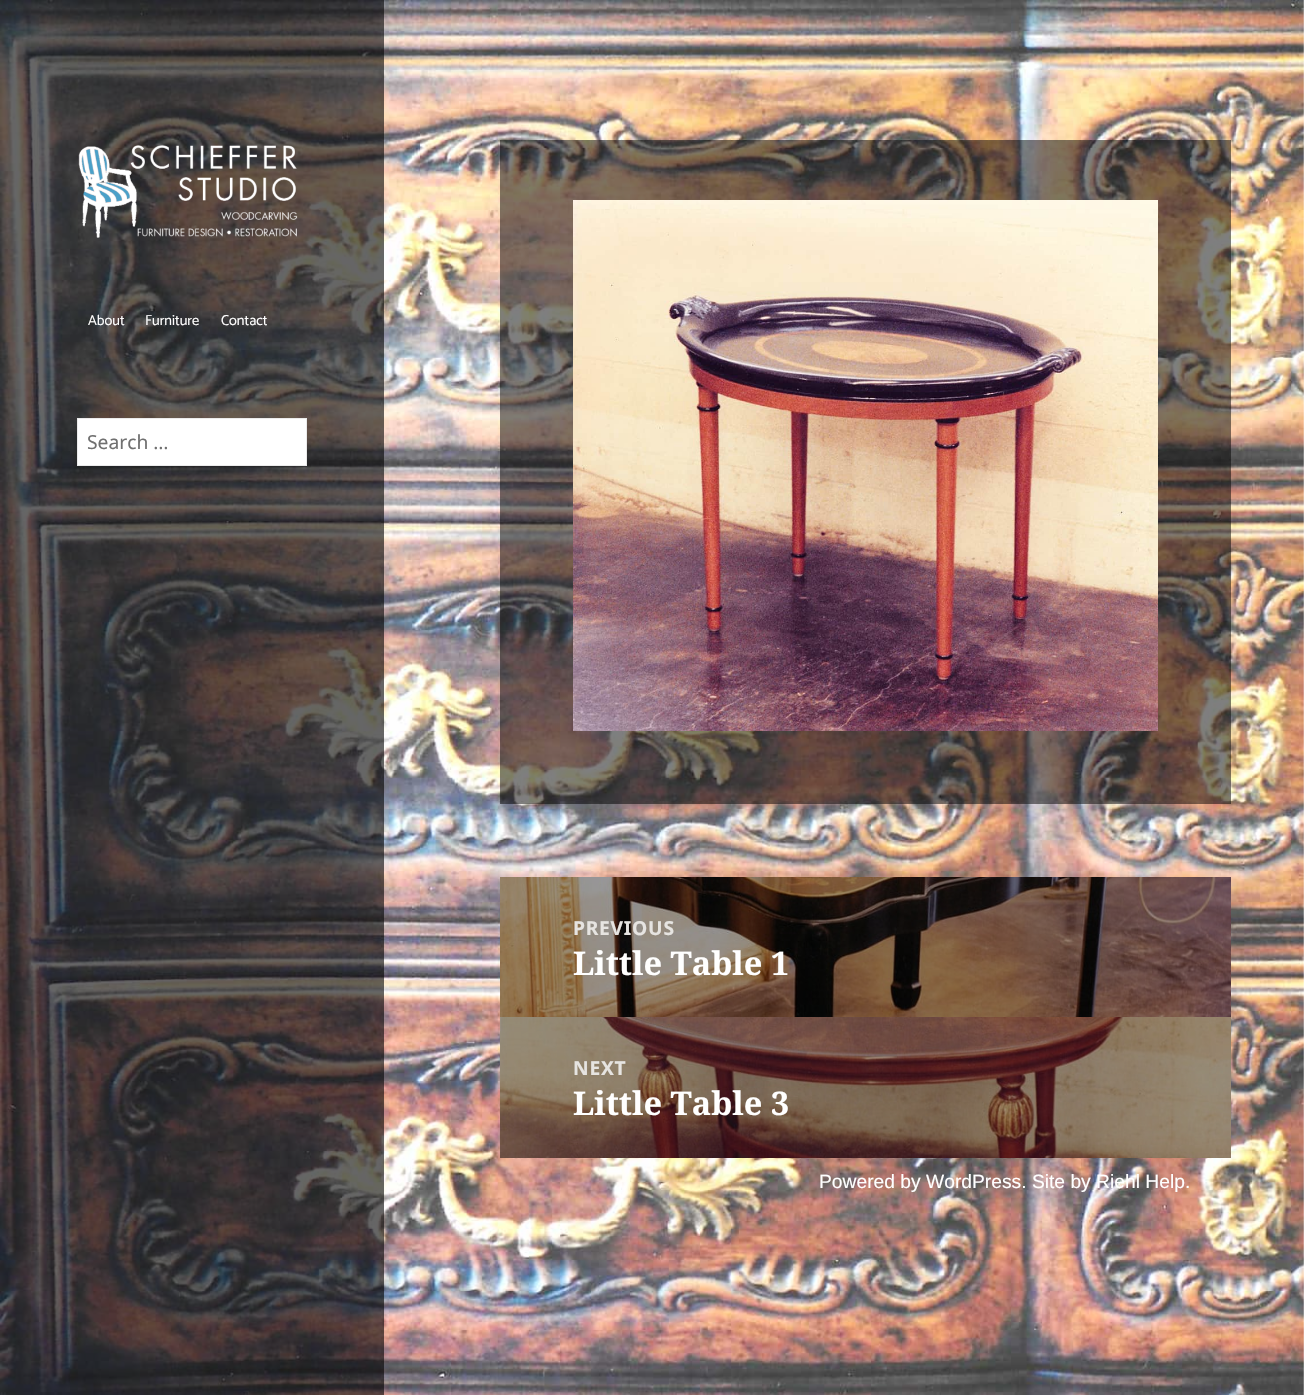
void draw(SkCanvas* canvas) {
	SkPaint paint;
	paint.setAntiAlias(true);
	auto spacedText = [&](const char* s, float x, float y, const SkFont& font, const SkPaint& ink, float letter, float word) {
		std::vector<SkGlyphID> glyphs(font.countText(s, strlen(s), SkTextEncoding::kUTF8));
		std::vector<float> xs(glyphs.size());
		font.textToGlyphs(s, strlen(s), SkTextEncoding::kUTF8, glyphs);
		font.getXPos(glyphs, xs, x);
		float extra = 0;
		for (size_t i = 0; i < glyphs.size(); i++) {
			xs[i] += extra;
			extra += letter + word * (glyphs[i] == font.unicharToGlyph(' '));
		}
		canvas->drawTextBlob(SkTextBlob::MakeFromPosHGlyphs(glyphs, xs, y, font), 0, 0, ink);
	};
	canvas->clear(0xffffffff);
	canvas->drawImageRect(SkImages::DeferredFromEncodedData(SkData::MakeFromFileName("img1.png")), SkRect::MakeXYWH(0, 0, 1304, 1395), SkSamplingOptions());
	paint.setColor(0x99000000);
	canvas->drawRect(SkRect::MakeXYWH(0, 0, 384, 1395), paint);
	canvas->drawImageRect(SkImages::DeferredFromEncodedData(SkData::MakeFromFileName("img2.png")), SkRect::MakeXYWH(78, 144, 220, 94), SkSamplingOptions());
	SkFont f1(fontMgr->matchFamilyStyle("Catamaran", SkFontStyle::Normal()), 14.5);
	f1.setSubpixel(true);
	paint.setColor(0xffffffff);
	canvas->drawString("About", 88, 325, f1, paint);
	canvas->drawString("Furniture", 145, 325, f1, paint);
	canvas->drawString("Contact", 221, 325, f1, paint);
	canvas->drawRect(SkRect::MakeXYWH(77.5, 418.5, 229, 47), paint);
	paint.setStroke(true);
	paint.setStrokeWidth(1);
	paint.setColor(0xffebebeb);
	canvas->drawRect(SkRect::MakeXYWH(77.5, 418.5, 229, 47), paint);
	SkFont f2(fontMgr->matchFamilyStyle("Noto Sans", SkFontStyle::Normal()), 19.25);
	f2.setSubpixel(true);
	paint.setStroke(false);
	paint.setColor(0xff707070);
	canvas->drawString("Search …", 87, 449, f2, paint);
	paint.setColor(0x80000000);
	canvas->drawRect(SkRect::MakeXYWH(500, 140, 731, 664), paint);
	canvas->drawImageRect(SkImages::DeferredFromEncodedData(SkData::MakeFromFileName("img3.png")), SkRect::MakeXYWH(573, 200, 585, 531), SkSamplingOptions());
	canvas->drawImageRect(SkImages::DeferredFromEncodedData(SkData::MakeFromFileName("img4.png")), SkRect::MakeXYWH(500, 877, 731, 140), SkSamplingOptions());
	SkFont f3(fontMgr->matchFamilyStyle("Noto Sans", SkFontStyle::Bold()), 19.25);
	f3.setSubpixel(true);
	paint.setColor(0xffe6e4e1);
	spacedText("PREVIOUS", 573, 935, f3, paint, 0.75, 0);
	SkFont f4(fontMgr->matchFamilyStyle("Noto Serif", SkFontStyle::Bold()), 32.5);
	f4.setSubpixel(true);
	paint.setColor(0xffffffff);
	canvas->drawString("Little Table 1", 573, 975, f4, paint);
	canvas->drawImageRect(SkImages::DeferredFromEncodedData(SkData::MakeFromFileName("img5.png")), SkRect::MakeXYWH(500, 1017, 731, 141), SkSamplingOptions());
	paint.setColor(0xffe6e4e1);
	spacedText("NEXT", 573, 1075, f3, paint, 0.75, 0);
	paint.setColor(0xffffffff);
	canvas->drawString("Little Table 3", 573, 1115, f4, paint);
	SkFont f5(fontMgr->matchFamilyStyle("Liberation Sans", SkFontStyle::Normal()), 19.25);
	f5.setSubpixel(true);
	canvas->drawString("Powered by WordPress. Site by Riehl Help.", 819, 1188, f5, paint);
}
